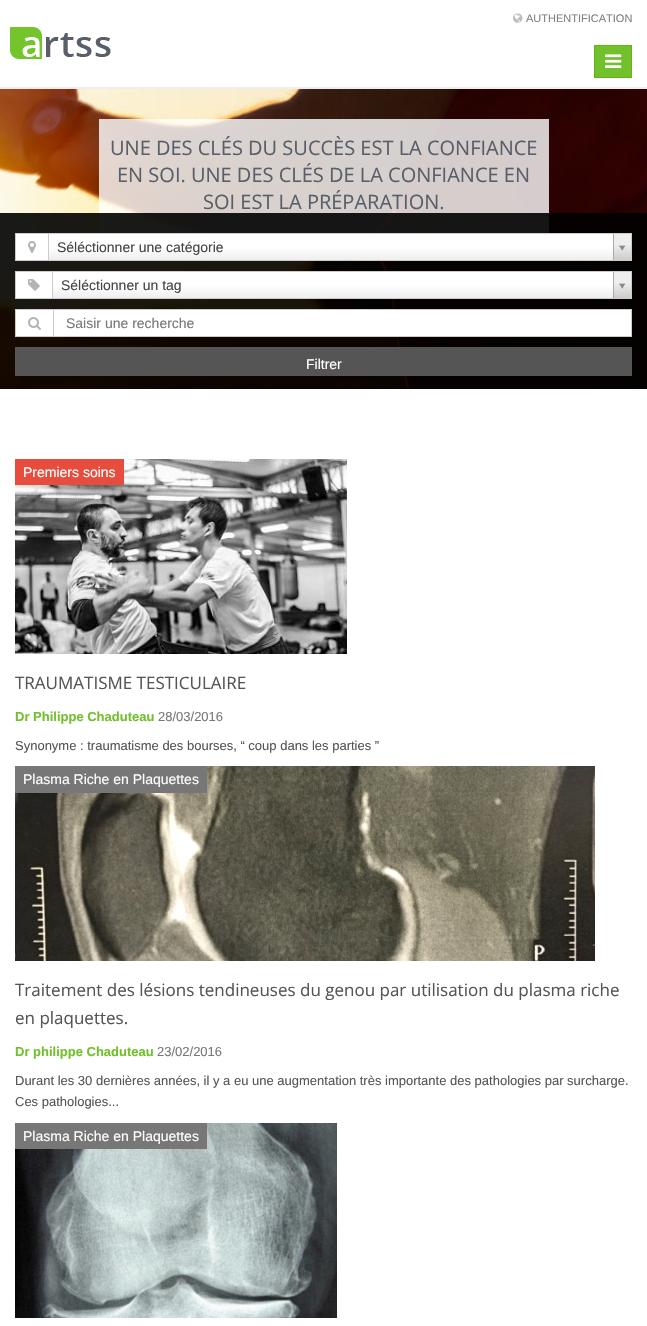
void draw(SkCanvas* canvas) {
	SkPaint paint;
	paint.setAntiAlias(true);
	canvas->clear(0xffffffff);
	paint.setColor(0xffeeeeee);
	canvas->drawRect(SkRect::MakeXYWH(0, 87, 647, 2), paint);
	canvas->drawImageRect(SkImages::DeferredFromEncodedData(SkData::MakeFromFileName("img1.png")), SkRect::MakeXYWH(513, 13, 10, 10), SkSamplingOptions());
	SkFont f1(fontMgr->matchFamilyStyle("Liberation Sans", SkFontStyle::Normal()), 11);
	f1.setSubpixel(true);
	paint.setColor(0xff7c8082);
	canvas->drawString("AUTHENTIFICATION", 526, 22, f1, paint);
	canvas->drawImageRect(SkImages::DeferredFromEncodedData(SkData::MakeFromFileName("img2.png")), SkRect::MakeXYWH(10, 27, 101, 32), SkSamplingOptions());
	paint.setColor(0xff72c02c);
	canvas->drawRect(SkRect::MakeXYWH(594.5, 45.5, 37, 32), paint);
	paint.setStroke(true);
	paint.setStrokeWidth(1);
	paint.setColor(0xff5fb611);
	canvas->drawRect(SkRect::MakeXYWH(594.5, 45.5, 37, 32), paint);
	canvas->drawImageRect(SkImages::DeferredFromEncodedData(SkData::MakeFromFileName("img3.png")), SkRect::MakeXYWH(605, 54, 17, 14), SkSamplingOptions());
	canvas->drawImageRect(SkImages::DeferredFromEncodedData(SkData::MakeFromFileName("img4.png")), SkRect::MakeXYWH(0, 89, 647, 300), SkSamplingOptions());
	paint.setStroke(false);
	paint.setColor(0xccffffff);
	canvas->drawRect(SkRect::MakeXYWH(99, 119, 450, 114), paint);
	SkFont f2(fontMgr->matchFamilyStyle("Open Sans", SkFontStyle::Normal()), 20);
	f2.setSubpixel(true);
	paint.setColor(0xff585f69);
	canvas->drawString("UNE DES CLÉS DU SUCCÈS EST LA CONFIANCE", 110, 155, f2, paint);
	canvas->drawString("EN SOI. UNE DES CLÉS DE LA CONFIANCE EN", 117, 182, f2, paint);
	canvas->drawString("SOI EST LA PRÉPARATION.", 203, 209, f2, paint);
	paint.setColor(0xe6000000);
	canvas->drawRect(SkRect::MakeXYWH(0, 213, 647, 176), paint);
	paint.setColor(0xffffffff);
	canvas->drawRect(SkRect::MakeXYWH(16, 234, 32, 26), paint);
	paint.setColor(0xffcccccc);
	canvas->drawRect(SkRect::MakeXYWH(15, 233, 33, 1), paint);
	canvas->drawRect(SkRect::MakeXYWH(15, 260, 33, 1), paint);
	canvas->drawRect(SkRect::MakeXYWH(15, 233, 1, 28), paint);
	canvas->drawImageRect(SkImages::DeferredFromEncodedData(SkData::MakeFromFileName("img5.png")), SkRect::MakeXYWH(28, 241, 8, 12), SkSamplingOptions());
	paint.setStroke(true);
	canvas->drawRect(SkRect::MakeXYWH(48.5, 233.5, 583, 27), paint);
	paint.setStroke(false);
	{
		const SkColor colors[] = {0xffeeeeee, 0xffffffff};
		const float stops[] = {0, 0.5};
		const SkPoint ends[] = {{340, 260}, {340, 234}};
		paint.setShader(SkGradientShader::MakeLinear(ends, colors, stops, 2, SkTileMode::kClamp));
		paint.setAlpha(255);
	}
	canvas->drawRect(SkRect::MakeXYWH(49, 234, 564, 26), paint);
	SkFont f3(fontMgr->matchFamilyStyle("Liberation Sans", SkFontStyle::Normal()), 14);
	f3.setSubpixel(true);
	paint.setShader(nullptr);
	paint.setColor(0xff444444);
	canvas->drawString("Séléctionner une catégorie", 57, 252, f3, paint);
	{
		const SkColor colors[] = {0xffcccccc, 0xffeeeeee};
		const float stops[] = {0, 0.6};
		const SkPoint ends[] = {{623, 260}, {623, 234}};
		paint.setShader(SkGradientShader::MakeLinear(ends, colors, stops, 2, SkTileMode::kClamp));
		paint.setAlpha(255);
	}
	canvas->drawRect(SkRect::MakeXYWH(614, 234, 17, 26), paint);
	paint.setShader(nullptr);
	paint.setColor(0xffaaaaaa);
	canvas->drawRect(SkRect::MakeXYWH(613, 234, 1, 26), paint);
	canvas->drawImageRect(SkImages::DeferredFromEncodedData(SkData::MakeFromFileName("img6.png")), SkRect::MakeXYWH(619, 245, 7, 6), SkSamplingOptions());
	paint.setColor(0xffffffff);
	canvas->drawRect(SkRect::MakeXYWH(16, 272, 36, 26), paint);
	paint.setColor(0xffcccccc);
	canvas->drawRect(SkRect::MakeXYWH(15, 271, 37, 1), paint);
	canvas->drawRect(SkRect::MakeXYWH(15, 298, 37, 1), paint);
	canvas->drawRect(SkRect::MakeXYWH(15, 271, 1, 28), paint);
	canvas->drawImageRect(SkImages::DeferredFromEncodedData(SkData::MakeFromFileName("img7.png")), SkRect::MakeXYWH(28, 279, 12, 12), SkSamplingOptions());
	paint.setStroke(true);
	canvas->drawRect(SkRect::MakeXYWH(52.5, 271.5, 579, 27), paint);
	paint.setStroke(false);
	{
		const SkColor colors[] = {0xffeeeeee, 0xffffffff};
		const float stops[] = {0, 0.5};
		const SkPoint ends[] = {{342, 298}, {342, 272}};
		paint.setShader(SkGradientShader::MakeLinear(ends, colors, stops, 2, SkTileMode::kClamp));
		paint.setAlpha(255);
	}
	canvas->drawRect(SkRect::MakeXYWH(53, 272, 560, 26), paint);
	paint.setShader(nullptr);
	paint.setColor(0xff444444);
	canvas->drawString("Séléctionner un tag", 61, 290, f3, paint);
	{
		const SkColor colors[] = {0xffcccccc, 0xffeeeeee};
		const float stops[] = {0, 0.6};
		const SkPoint ends[] = {{623, 298}, {623, 272}};
		paint.setShader(SkGradientShader::MakeLinear(ends, colors, stops, 2, SkTileMode::kClamp));
		paint.setAlpha(255);
	}
	canvas->drawRect(SkRect::MakeXYWH(614, 272, 17, 26), paint);
	paint.setShader(nullptr);
	paint.setColor(0xffaaaaaa);
	canvas->drawRect(SkRect::MakeXYWH(613, 272, 1, 26), paint);
	canvas->drawImageRect(SkImages::DeferredFromEncodedData(SkData::MakeFromFileName("img6.png")), SkRect::MakeXYWH(619, 283, 7, 6), SkSamplingOptions());
	paint.setColor(0xffffffff);
	canvas->drawRect(SkRect::MakeXYWH(16, 310, 37, 26), paint);
	paint.setColor(0xffcccccc);
	canvas->drawRect(SkRect::MakeXYWH(15, 309, 38, 1), paint);
	canvas->drawRect(SkRect::MakeXYWH(15, 336, 38, 1), paint);
	canvas->drawRect(SkRect::MakeXYWH(15, 309, 1, 28), paint);
	canvas->drawImageRect(SkImages::DeferredFromEncodedData(SkData::MakeFromFileName("img8.png")), SkRect::MakeXYWH(28, 317, 13, 13), SkSamplingOptions());
	paint.setColor(0xffffffff);
	canvas->drawRect(SkRect::MakeXYWH(53.5, 309.5, 578, 27), paint);
	paint.setStroke(true);
	paint.setColor(0xffcccccc);
	canvas->drawRect(SkRect::MakeXYWH(53.5, 309.5, 578, 27), paint);
	paint.setStroke(false);
	paint.setColor(0xff777777);
	canvas->drawString("Saisir une recherche", 66, 328, f3, paint);
	paint.setColor(0xff555555);
	canvas->drawRect(SkRect::MakeXYWH(15, 347, 617, 29), paint);
	paint.setColor(0xffffffff);
	canvas->drawString("Filtrer", 306, 369, f3, paint);
	canvas->drawImageRect(SkImages::DeferredFromEncodedData(SkData::MakeFromFileName("img9.png")), SkRect::MakeXYWH(15, 459, 332, 195), SkSamplingOptions());
	paint.setColor(0xffe74c3c);
	canvas->drawRect(SkRect::MakeXYWH(15, 459, 109, 26), paint);
	paint.setColor(0xffffffff);
	canvas->drawString("Premiers soins", 23, 477, f3, paint);
	SkFont f4(fontMgr->matchFamilyStyle("Open Sans", SkFontStyle::Normal()), 17);
	f4.setSubpixel(true);
	paint.setColor(0xff555555);
	canvas->drawString("TRAUMATISME TESTICULAIRE", 15, 689, f4, paint);
	SkFont f5(fontMgr->matchFamilyStyle("Liberation Sans", SkFontStyle::Bold()), 13);
	f5.setSubpixel(true);
	paint.setColor(0xff72c02c);
	canvas->drawString("Dr Philippe Chaduteau", 15, 721, f5, paint);
	SkFont f6(fontMgr->matchFamilyStyle("Liberation Sans", SkFontStyle::Normal()), 13);
	f6.setSubpixel(true);
	paint.setColor(0xff777777);
	canvas->drawString("28/03/2016", 158, 721, f6, paint);
	paint.setColor(0xff555555);
	canvas->drawString("Synonyme : traumatisme des bourses, “ coup dans les parties ”", 15, 750, f6, paint);
	canvas->drawImageRect(SkImages::DeferredFromEncodedData(SkData::MakeFromFileName("img10.png")), SkRect::MakeXYWH(15, 766, 580, 195), SkSamplingOptions());
	paint.setColor(0xff777777);
	canvas->drawRect(SkRect::MakeXYWH(15, 766, 192, 27), paint);
	paint.setColor(0xffffffff);
	canvas->drawString("Plasma Riche en Plaquettes", 23, 784, f3, paint);
	paint.setColor(0xff555555);
	canvas->drawString("Traitement des lésions tendineuses du genou par utilisation du plasma riche", 15, 996, f4, paint);
	canvas->drawString("en plaquettes.", 15, 1024, f4, paint);
	paint.setColor(0xff72c02c);
	canvas->drawString("Dr philippe Chaduteau", 15, 1056, f5, paint);
	paint.setColor(0xff777777);
	canvas->drawString("23/02/2016", 157, 1056, f6, paint);
	paint.setColor(0xff555555);
	canvas->drawString("Durant les 30 dernières années, il y a eu une augmentation très importante des pathologies par surcharge.", 15, 1085, f6, paint);
	canvas->drawString("Ces pathologies...", 15, 1106, f6, paint);
	canvas->drawImageRect(SkImages::DeferredFromEncodedData(SkData::MakeFromFileName("img11.png")), SkRect::MakeXYWH(15, 1123, 322, 195), SkSamplingOptions());
	paint.setColor(0xff777777);
	canvas->drawRect(SkRect::MakeXYWH(15, 1123, 192, 26), paint);
	paint.setColor(0xffffffff);
	canvas->drawString("Plasma Riche en Plaquettes", 23, 1141, f3, paint);
}
